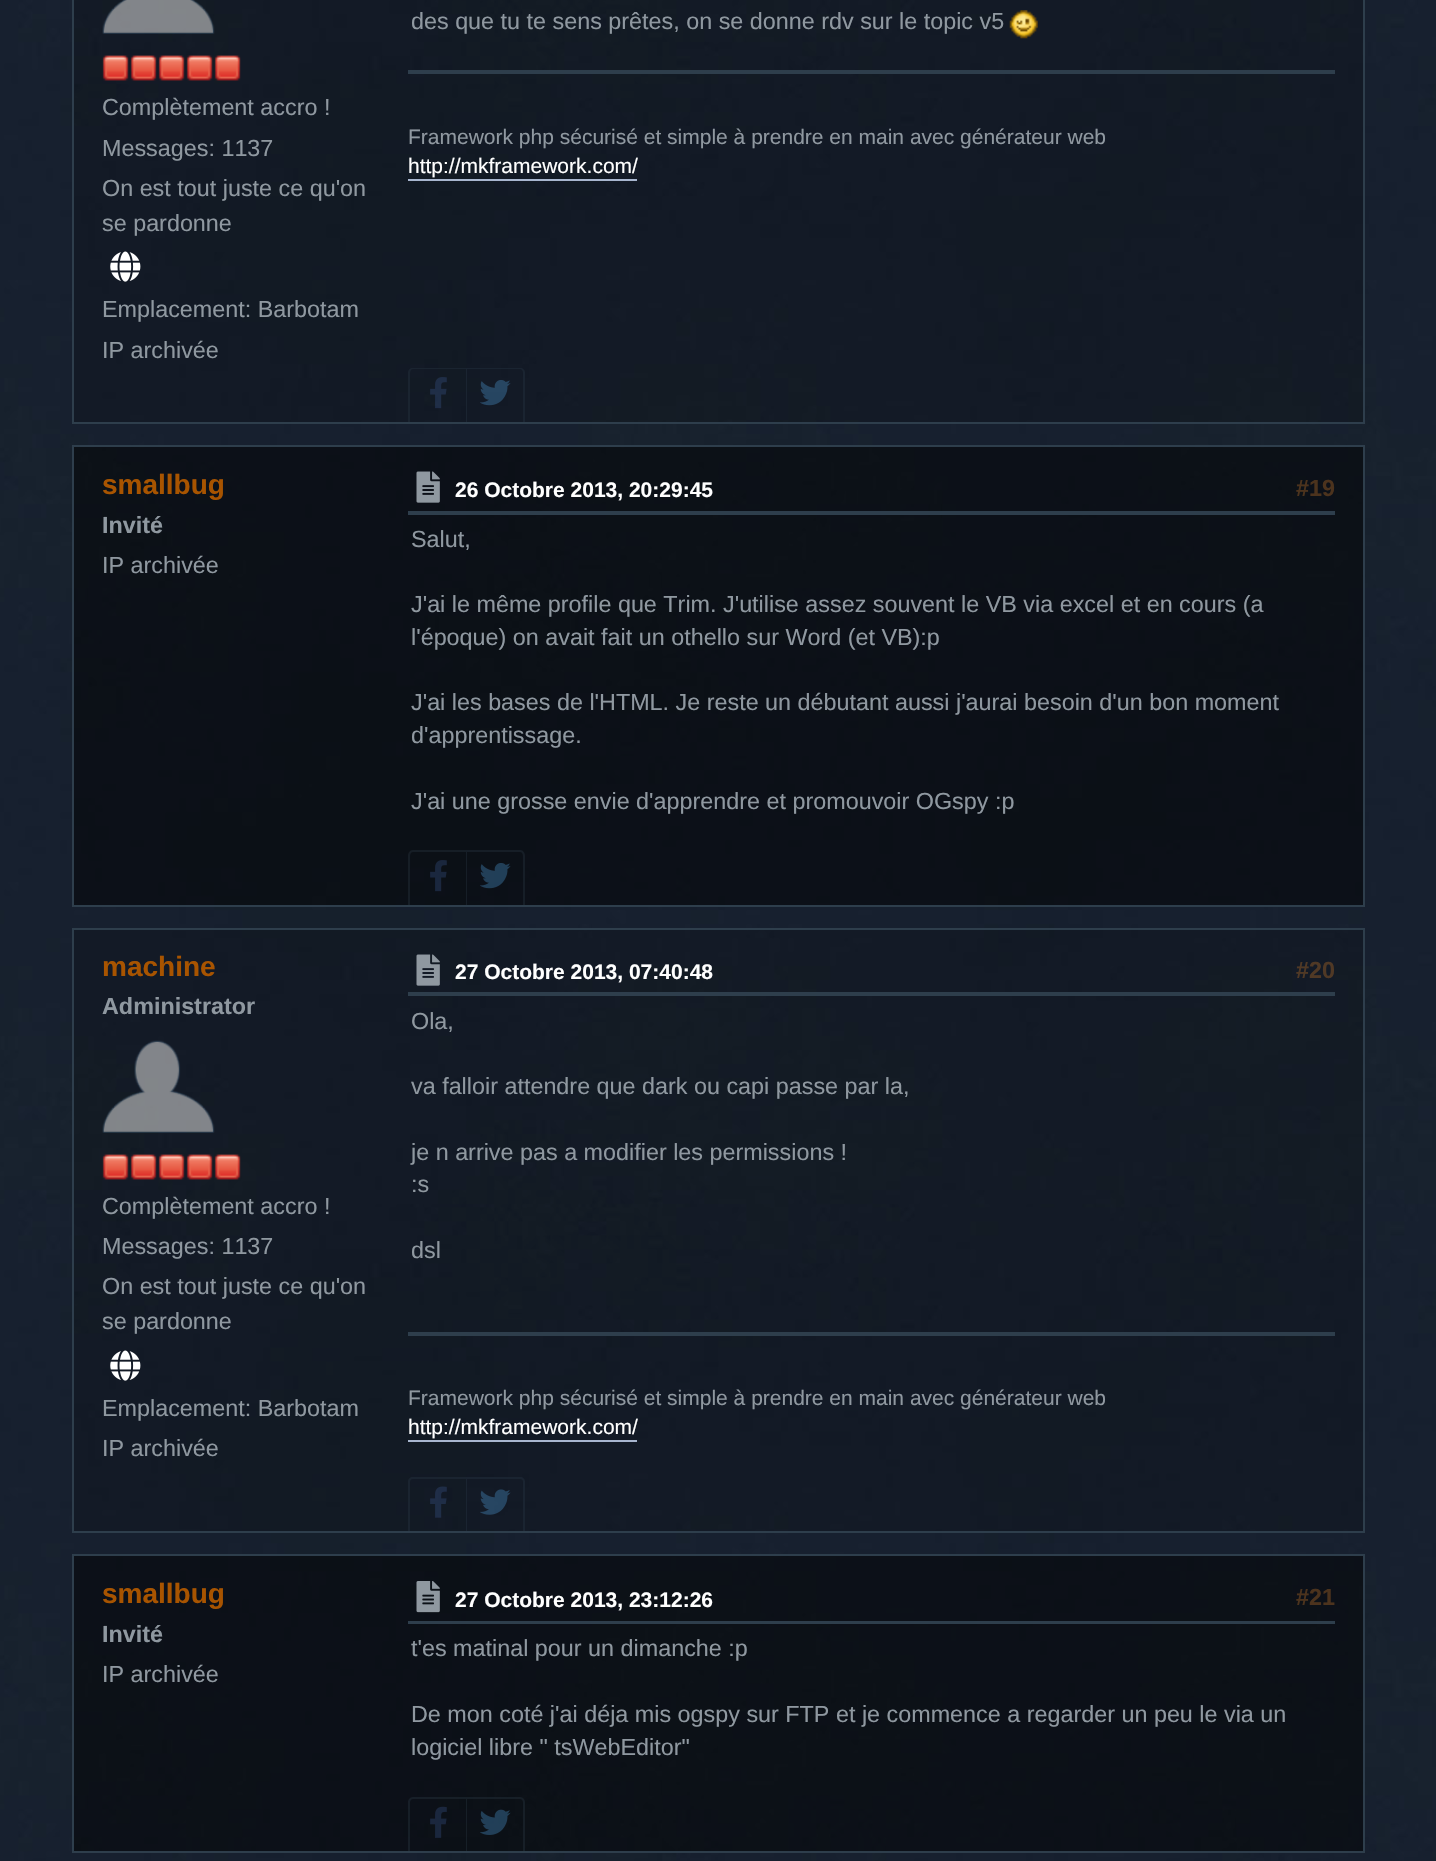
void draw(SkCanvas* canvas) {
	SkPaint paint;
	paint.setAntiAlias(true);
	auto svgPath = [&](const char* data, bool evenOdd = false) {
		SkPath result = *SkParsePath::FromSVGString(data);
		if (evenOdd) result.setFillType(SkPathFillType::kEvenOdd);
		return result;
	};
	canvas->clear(0xffffffff);
	canvas->drawImageRect(SkImages::DeferredFromEncodedData(SkData::MakeFromFileName("img1.png")), SkRect::MakeXYWH(0, 0, 1436, 1861), SkSamplingOptions());
	paint.setColor(0x33000000);
	canvas->drawRect(SkRect::MakeXYWH(73, -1, 1291, 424), paint);
	paint.setStroke(true);
	paint.setStrokeWidth(2);
	paint.setColor(0xff2e3e4c);
	canvas->drawRect(SkRect::MakeXYWH(73, -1, 1291, 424), paint);
	SkFont f1(fontMgr->matchFamilyStyle("Liberation Sans", SkFontStyle::Normal()), 23.35);
	f1.setSubpixel(true);
	paint.setStroke(false);
	paint.setColor(0xff8f98a0);
	canvas->drawString("des que tu te sens prêtes, on se donne rdv sur le topic v5", 411, 29, f1, paint);
	canvas->drawImageRect(SkImages::DeferredFromEncodedData(SkData::MakeFromFileName("img2.png")), SkRect::MakeXYWH(1009, 10, 29, 29), SkSamplingOptions());
	canvas->drawImageRect(SkImages::DeferredFromEncodedData(SkData::MakeFromFileName("img3.png")), SkRect::MakeXYWH(102, 0, 113, 34), SkSamplingOptions());
	canvas->drawImageRect(SkImages::DeferredFromEncodedData(SkData::MakeFromFileName("img4.png")), SkRect::MakeXYWH(102, 55, 27, 26), SkSamplingOptions());
	canvas->drawImageRect(SkImages::DeferredFromEncodedData(SkData::MakeFromFileName("img5.png")), SkRect::MakeXYWH(130, 55, 27, 26), SkSamplingOptions());
	canvas->drawImageRect(SkImages::DeferredFromEncodedData(SkData::MakeFromFileName("img6.png")), SkRect::MakeXYWH(158, 55, 27, 26), SkSamplingOptions());
	canvas->drawImageRect(SkImages::DeferredFromEncodedData(SkData::MakeFromFileName("img7.png")), SkRect::MakeXYWH(186, 55, 27, 26), SkSamplingOptions());
	canvas->drawImageRect(SkImages::DeferredFromEncodedData(SkData::MakeFromFileName("img8.png")), SkRect::MakeXYWH(214, 55, 27, 26), SkSamplingOptions());
	canvas->drawString("Complètement accro !", 102, 115, f1, paint);
	canvas->drawString("Messages: 1137", 102, 156, f1, paint);
	canvas->drawString("On est tout juste ce qu'on", 102, 196, f1, paint);
	canvas->drawString("se pardonne", 102, 231, f1, paint);
	canvas->drawImageRect(SkImages::DeferredFromEncodedData(SkData::MakeFromFileName("img9.png")), SkRect::MakeXYWH(110, 251, 31, 31), SkSamplingOptions());
	canvas->drawString("Emplacement: Barbotam", 102, 317, f1, paint);
	canvas->drawString("IP archivée", 102, 358, f1, paint);
	paint.setColor(0xff2e3e4c);
	canvas->drawRect(SkRect::MakeXYWH(408, 70, 927, 4), paint);
	SkFont f2(fontMgr->matchFamilyStyle("Liberation Sans", SkFontStyle::Normal()), 21);
	f2.setSubpixel(true);
	paint.setColor(0xff8f98a0);
	canvas->drawString("Framework php sécurisé et simple à prendre en main avec générateur web", 408, 144, f2, paint);
	paint.setColor(0xffffffff);
	canvas->drawString("http://mkframework.com/", 408, 173, f2, paint);
	paint.setColor(0xffa8b6cf);
	canvas->drawRect(SkRect::MakeXYWH(408, 179, 229, 2), paint);
	paint.setColor(0xff1a2430);
	canvas->drawPath(svgPath("M413 368H466V422H408V373C408 370 410 368 413 368ZM413 369H466V422H410V373C410 371 411 369 413 369Z", true), paint);
	canvas->drawImageRect(SkImages::DeferredFromEncodedData(SkData::MakeFromFileName("img10.png")), SkRect::MakeXYWH(430, 377, 17, 32), SkSamplingOptions());
	paint.setColor(0xff1a2431);
	canvas->drawPath(svgPath("M466 368H520C523 368 525 370 525 373V422H466ZM467 369H520C522 369 523 371 523 373V422H467Z", true), paint);
	canvas->drawImageRect(SkImages::DeferredFromEncodedData(SkData::MakeFromFileName("img11.png")), SkRect::MakeXYWH(480, 380, 31, 26), SkSamplingOptions());
	paint.setColor(0x80000000);
	canvas->drawRect(SkRect::MakeXYWH(73, 446, 1291, 460), paint);
	paint.setStroke(true);
	paint.setColor(0xff2e3e4c);
	canvas->drawRect(SkRect::MakeXYWH(73, 446, 1291, 460), paint);
	SkFont f3(fontMgr->matchFamilyStyle("Liberation Sans", SkFontStyle::Bold()), 28);
	f3.setSubpixel(true);
	paint.setStroke(false);
	paint.setColor(0xffa85400);
	canvas->drawString("smallbug", 102, 494, f3, paint);
	SkFont f4(fontMgr->matchFamilyStyle("Liberation Sans", SkFontStyle::Bold()), 23.35);
	f4.setSubpixel(true);
	paint.setColor(0xff8f98a0);
	canvas->drawString("Invité", 102, 533, f4, paint);
	canvas->drawString("IP archivée", 102, 573, f1, paint);
	canvas->drawImageRect(SkImages::DeferredFromEncodedData(SkData::MakeFromFileName("img12.png")), SkRect::MakeXYWH(416, 471, 24, 32), SkSamplingOptions());
	SkFont f5(fontMgr->matchFamilyStyle("Liberation Sans", SkFontStyle::Bold()), 21);
	f5.setSubpixel(true);
	paint.setColor(0xffffffff);
	canvas->drawString("26 Octobre 2013, 20:29:45", 455, 497, f5, paint);
	paint.setColor(0xff4c331d);
	canvas->drawString("#19", 1296, 496, f4, paint);
	paint.setColor(0xff2e3e4c);
	canvas->drawRect(SkRect::MakeXYWH(408, 511, 927, 4), paint);
	paint.setColor(0xff8f98a0);
	canvas->drawString("Salut,", 411, 547, f1, paint);
	canvas->drawString("J'ai le même profile que Trim. J'utilise assez souvent le VB via excel et en cours (a", 411, 612, f1, paint);
	canvas->drawString("l'époque) on avait fait un othello sur Word (et VB):p", 411, 645, f1, paint);
	canvas->drawString("J'ai les bases de l'HTML. Je reste un débutant aussi j'aurai besoin d'un bon moment", 411, 710, f1, paint);
	canvas->drawString("d'apprentissage.", 411, 743, f1, paint);
	canvas->drawString("J'ai une grosse envie d'apprendre et promouvoir OGspy :p", 411, 809, f1, paint);
	paint.setColor(0xff161e26);
	canvas->drawPath(svgPath("M413 850H466V905H408V856C408 853 410 850 413 850ZM413 852H466V905H410V856C410 854 411 852 413 852Z", true), paint);
	canvas->drawImageRect(SkImages::DeferredFromEncodedData(SkData::MakeFromFileName("img13.png")), SkRect::MakeXYWH(430, 860, 17, 32), SkSamplingOptions());
	paint.setColor(0xff161e27);
	canvas->drawPath(svgPath("M466 850H520C523 850 525 853 525 856V905H466ZM467 852H520C522 852 523 854 523 856V905H467Z", true), paint);
	canvas->drawImageRect(SkImages::DeferredFromEncodedData(SkData::MakeFromFileName("img14.png")), SkRect::MakeXYWH(480, 863, 31, 26), SkSamplingOptions());
	paint.setColor(0x33000000);
	canvas->drawRect(SkRect::MakeXYWH(73, 929, 1291, 603), paint);
	paint.setStroke(true);
	paint.setColor(0xff2e3e4c);
	canvas->drawRect(SkRect::MakeXYWH(73, 929, 1291, 603), paint);
	paint.setStroke(false);
	paint.setColor(0xffa85400);
	canvas->drawString("machine", 102, 976, f3, paint);
	paint.setColor(0xff8f98a0);
	canvas->drawString("Administrator", 102, 1014, f4, paint);
	canvas->drawImageRect(SkImages::DeferredFromEncodedData(SkData::MakeFromFileName("img15.png")), SkRect::MakeXYWH(102, 1040, 113, 93), SkSamplingOptions());
	canvas->drawImageRect(SkImages::DeferredFromEncodedData(SkData::MakeFromFileName("img16.png")), SkRect::MakeXYWH(102, 1154, 27, 26), SkSamplingOptions());
	canvas->drawImageRect(SkImages::DeferredFromEncodedData(SkData::MakeFromFileName("img17.png")), SkRect::MakeXYWH(130, 1154, 27, 26), SkSamplingOptions());
	canvas->drawImageRect(SkImages::DeferredFromEncodedData(SkData::MakeFromFileName("img18.png")), SkRect::MakeXYWH(158, 1154, 27, 26), SkSamplingOptions());
	canvas->drawImageRect(SkImages::DeferredFromEncodedData(SkData::MakeFromFileName("img19.png")), SkRect::MakeXYWH(186, 1154, 27, 26), SkSamplingOptions());
	canvas->drawImageRect(SkImages::DeferredFromEncodedData(SkData::MakeFromFileName("img20.png")), SkRect::MakeXYWH(214, 1154, 27, 26), SkSamplingOptions());
	canvas->drawString("Complètement accro !", 102, 1214, f1, paint);
	canvas->drawString("Messages: 1137", 102, 1254, f1, paint);
	canvas->drawString("On est tout juste ce qu'on", 102, 1294, f1, paint);
	canvas->drawString("se pardonne", 102, 1329, f1, paint);
	canvas->drawImageRect(SkImages::DeferredFromEncodedData(SkData::MakeFromFileName("img21.png")), SkRect::MakeXYWH(110, 1350, 31, 31), SkSamplingOptions());
	canvas->drawString("Emplacement: Barbotam", 102, 1416, f1, paint);
	canvas->drawString("IP archivée", 102, 1456, f1, paint);
	canvas->drawImageRect(SkImages::DeferredFromEncodedData(SkData::MakeFromFileName("img22.png")), SkRect::MakeXYWH(416, 954, 24, 32), SkSamplingOptions());
	paint.setColor(0xffffffff);
	canvas->drawString("27 Octobre 2013, 07:40:48", 455, 979, f5, paint);
	paint.setColor(0xff503925);
	canvas->drawString("#20", 1296, 978, f4, paint);
	paint.setColor(0xff2e3e4c);
	canvas->drawRect(SkRect::MakeXYWH(408, 992, 927, 4), paint);
	paint.setColor(0xff8f98a0);
	canvas->drawString("Ola,", 411, 1029, f1, paint);
	canvas->drawString("va falloir attendre que dark ou capi passe par la,", 411, 1094, f1, paint);
	canvas->drawString("je n arrive pas a modifier les permissions !", 411, 1160, f1, paint);
	canvas->drawString(":s", 411, 1192, f1, paint);
	canvas->drawString("dsl", 411, 1258, f1, paint);
	paint.setColor(0xff2e3e4c);
	canvas->drawRect(SkRect::MakeXYWH(408, 1332, 927, 4), paint);
	paint.setColor(0xff8f98a0);
	canvas->drawString("Framework php sécurisé et simple à prendre en main avec générateur web", 408, 1405, f2, paint);
	paint.setColor(0xffffffff);
	canvas->drawString("http://mkframework.com/", 408, 1434, f2, paint);
	paint.setColor(0xffa8b6cf);
	canvas->drawRect(SkRect::MakeXYWH(408, 1440, 229, 2), paint);
	paint.setColor(0xff1a2430);
	canvas->drawPath(svgPath("M413 1477H466V1531H408V1482C408 1479 410 1477 413 1477ZM413 1479H466V1531H410V1482C410 1480 411 1479 413 1479Z", true), paint);
	canvas->drawImageRect(SkImages::DeferredFromEncodedData(SkData::MakeFromFileName("img23.png")), SkRect::MakeXYWH(430, 1486, 17, 32), SkSamplingOptions());
	paint.setColor(0xff1a2431);
	canvas->drawPath(svgPath("M466 1477H520C523 1477 525 1479 525 1482V1531H466ZM467 1479H520C522 1479 523 1480 523 1482V1531H467Z", true), paint);
	canvas->drawImageRect(SkImages::DeferredFromEncodedData(SkData::MakeFromFileName("img24.png")), SkRect::MakeXYWH(480, 1489, 31, 26), SkSamplingOptions());
	paint.setColor(0x80000000);
	canvas->drawRect(SkRect::MakeXYWH(73, 1555, 1291, 297), paint);
	paint.setStroke(true);
	paint.setColor(0xff2e3e4c);
	canvas->drawRect(SkRect::MakeXYWH(73, 1555, 1291, 297), paint);
	paint.setStroke(false);
	paint.setColor(0xffa85400);
	canvas->drawString("smallbug", 102, 1603, f3, paint);
	paint.setColor(0xff8f98a0);
	canvas->drawString("Invité", 102, 1642, f4, paint);
	canvas->drawString("IP archivée", 102, 1682, f1, paint);
	canvas->drawImageRect(SkImages::DeferredFromEncodedData(SkData::MakeFromFileName("img25.png")), SkRect::MakeXYWH(416, 1581, 24, 32), SkSamplingOptions());
	paint.setColor(0xffffffff);
	canvas->drawString("27 Octobre 2013, 23:12:26", 455, 1607, f5, paint);
	paint.setColor(0xff4c331d);
	canvas->drawString("#21", 1296, 1605, f4, paint);
	paint.setColor(0xff2e3e4c);
	canvas->drawRect(SkRect::MakeXYWH(408, 1621, 927, 3), paint);
	paint.setColor(0xff8f98a0);
	canvas->drawString("t'es matinal pour un dimanche :p", 411, 1656, f1, paint);
	canvas->drawString("De mon coté j'ai déja mis ogspy sur FTP et je commence a regarder un peu le via un", 411, 1722, f1, paint);
	canvas->drawString("logiciel libre \" tsWebEditor\"", 411, 1755, f1, paint);
	paint.setColor(0x4d2e3e4c);
	canvas->drawPath(svgPath("M413 1797H466V1852H408V1802C408 1800 410 1797 413 1797ZM413 1799H466V1852H410V1802C410 1801 411 1799 413 1799Z", true), paint);
	canvas->drawImageRect(SkImages::DeferredFromEncodedData(SkData::MakeFromFileName("img26.png")), SkRect::MakeXYWH(430, 1806, 17, 32), SkSamplingOptions());
	canvas->drawPath(svgPath("M466 1797H520C523 1797 525 1800 525 1802V1852H466ZM467 1799H520C522 1799 523 1801 523 1802V1852H467Z", true), paint);
	canvas->drawImageRect(SkImages::DeferredFromEncodedData(SkData::MakeFromFileName("img27.png")), SkRect::MakeXYWH(480, 1809, 31, 26), SkSamplingOptions());
}
